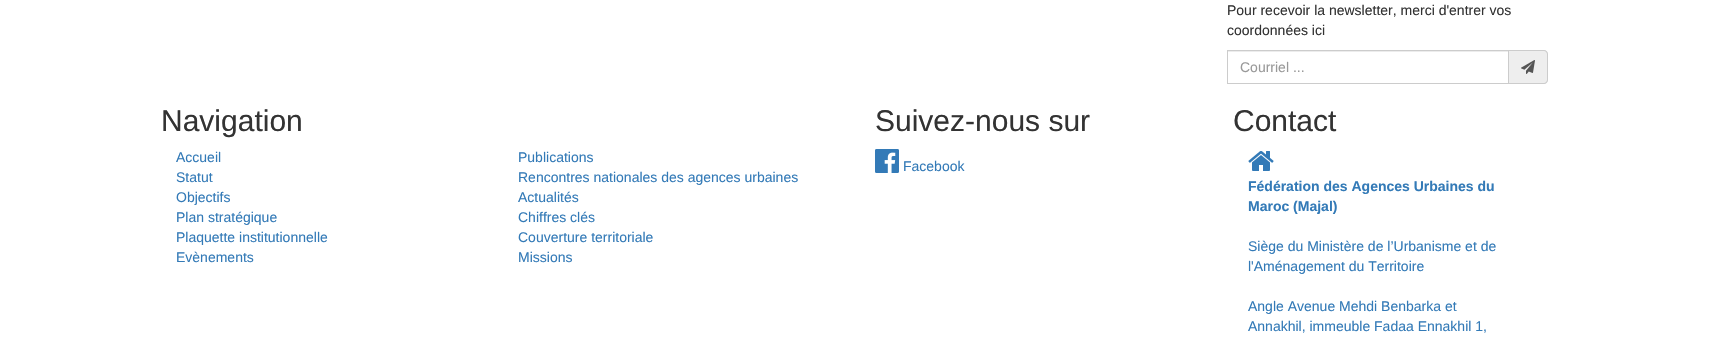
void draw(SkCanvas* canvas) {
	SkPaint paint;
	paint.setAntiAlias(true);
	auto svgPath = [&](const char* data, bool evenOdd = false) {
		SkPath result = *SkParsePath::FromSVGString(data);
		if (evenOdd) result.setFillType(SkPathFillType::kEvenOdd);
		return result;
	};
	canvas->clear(0xffffffff);
	SkFont f1(fontMgr->matchFamilyStyle("Liberation Sans", SkFontStyle::Normal()), 14);
	f1.setSubpixel(true);
	paint.setColor(0xff333333);
	canvas->drawString("Pour recevoir la newsletter, merci d'entrer vos", 1227, 15, f1, paint);
	canvas->drawString("coordonnées ici", 1227, 35, f1, paint);
	paint.setColor(0xffececec);
	canvas->drawRect(SkRect::MakeXYWH(1228, 51, 280, 1), paint);
	paint.setStroke(true);
	paint.setStrokeWidth(1);
	paint.setColor(0xffcccccc);
	canvas->drawRect(SkRect::MakeXYWH(1227.5, 50.5, 281, 33), paint);
	paint.setStroke(false);
	paint.setColor(0xff999999);
	canvas->drawString("Courriel ...", 1240, 72, f1, paint);
	paint.setColor(0xffeeeeee);
	canvas->drawPath(svgPath("M1509 50H1544C1546 50 1548 52 1548 54V80C1548 82 1546 84 1544 84H1509Z"), paint);
	paint.setColor(0xffcccccc);
	canvas->drawPath(svgPath("M1509 50H1544C1546 50 1548 52 1548 54V80C1548 82 1546 84 1544 84H1509ZM1509 51H1544C1545.5 51 1547 52.5 1547 54V80C1547 81.5 1545.5 83 1544 83H1509Z", true), paint);
	canvas->drawImageRect(SkImages::DeferredFromEncodedData(SkData::MakeFromFileName("img1.png")), SkRect::MakeXYWH(1521, 60, 14, 14), SkSamplingOptions());
	SkFont f2(fontMgr->matchFamilyStyle("Liberation Sans", SkFontStyle::Normal()), 30);
	f2.setSubpixel(true);
	paint.setColor(0xff333333);
	canvas->drawString("Navigation", 161, 131, f2, paint);
	paint.setColor(0xff337ab7);
	canvas->drawString("Accueil", 176, 162, f1, paint);
	canvas->drawString("Statut", 176, 182, f1, paint);
	canvas->drawString("Objectifs", 176, 202, f1, paint);
	canvas->drawString("Plan stratégique", 176, 222, f1, paint);
	canvas->drawString("Plaquette institutionnelle", 176, 242, f1, paint);
	canvas->drawString("Evènements", 176, 262, f1, paint);
	canvas->drawString("Publications", 518, 162, f1, paint);
	canvas->drawString("Rencontres nationales des agences urbaines", 518, 182, f1, paint);
	canvas->drawString("Actualités", 518, 202, f1, paint);
	canvas->drawString("Chiffres clés", 518, 222, f1, paint);
	canvas->drawString("Couverture territoriale", 518, 242, f1, paint);
	canvas->drawString("Missions", 518, 262, f1, paint);
	paint.setColor(0xff333333);
	canvas->drawString("Suivez-nous sur", 875, 131, f2, paint);
	canvas->drawImageRect(SkImages::DeferredFromEncodedData(SkData::MakeFromFileName("img2.png")), SkRect::MakeXYWH(875, 149, 24, 24), SkSamplingOptions());
	paint.setColor(0xff337ab7);
	canvas->drawString("Facebook", 903, 171, f1, paint);
	paint.setColor(0xff333333);
	canvas->drawString("Contact", 1233, 131, f2, paint);
	canvas->drawImageRect(SkImages::DeferredFromEncodedData(SkData::MakeFromFileName("img3.png")), SkRect::MakeXYWH(1248, 151, 26, 20), SkSamplingOptions());
	SkFont f3(fontMgr->matchFamilyStyle("Liberation Sans", SkFontStyle::Bold()), 14);
	f3.setSubpixel(true);
	paint.setColor(0xff337ab7);
	canvas->drawString("Fédération des Agences Urbaines du", 1248, 191, f3, paint);
	canvas->drawString("Maroc (Majal)", 1248, 211, f3, paint);
	canvas->drawString("Siège du Ministère de l’Urbanisme et de", 1248, 251, f1, paint);
	canvas->drawString("l'Aménagement du Territoire", 1248, 271, f1, paint);
	canvas->drawString("Angle Avenue Mehdi Benbarka et", 1248, 311, f1, paint);
	canvas->drawString("Annakhil, immeuble Fadaa Ennakhil 1,", 1248, 331, f1, paint);
}
